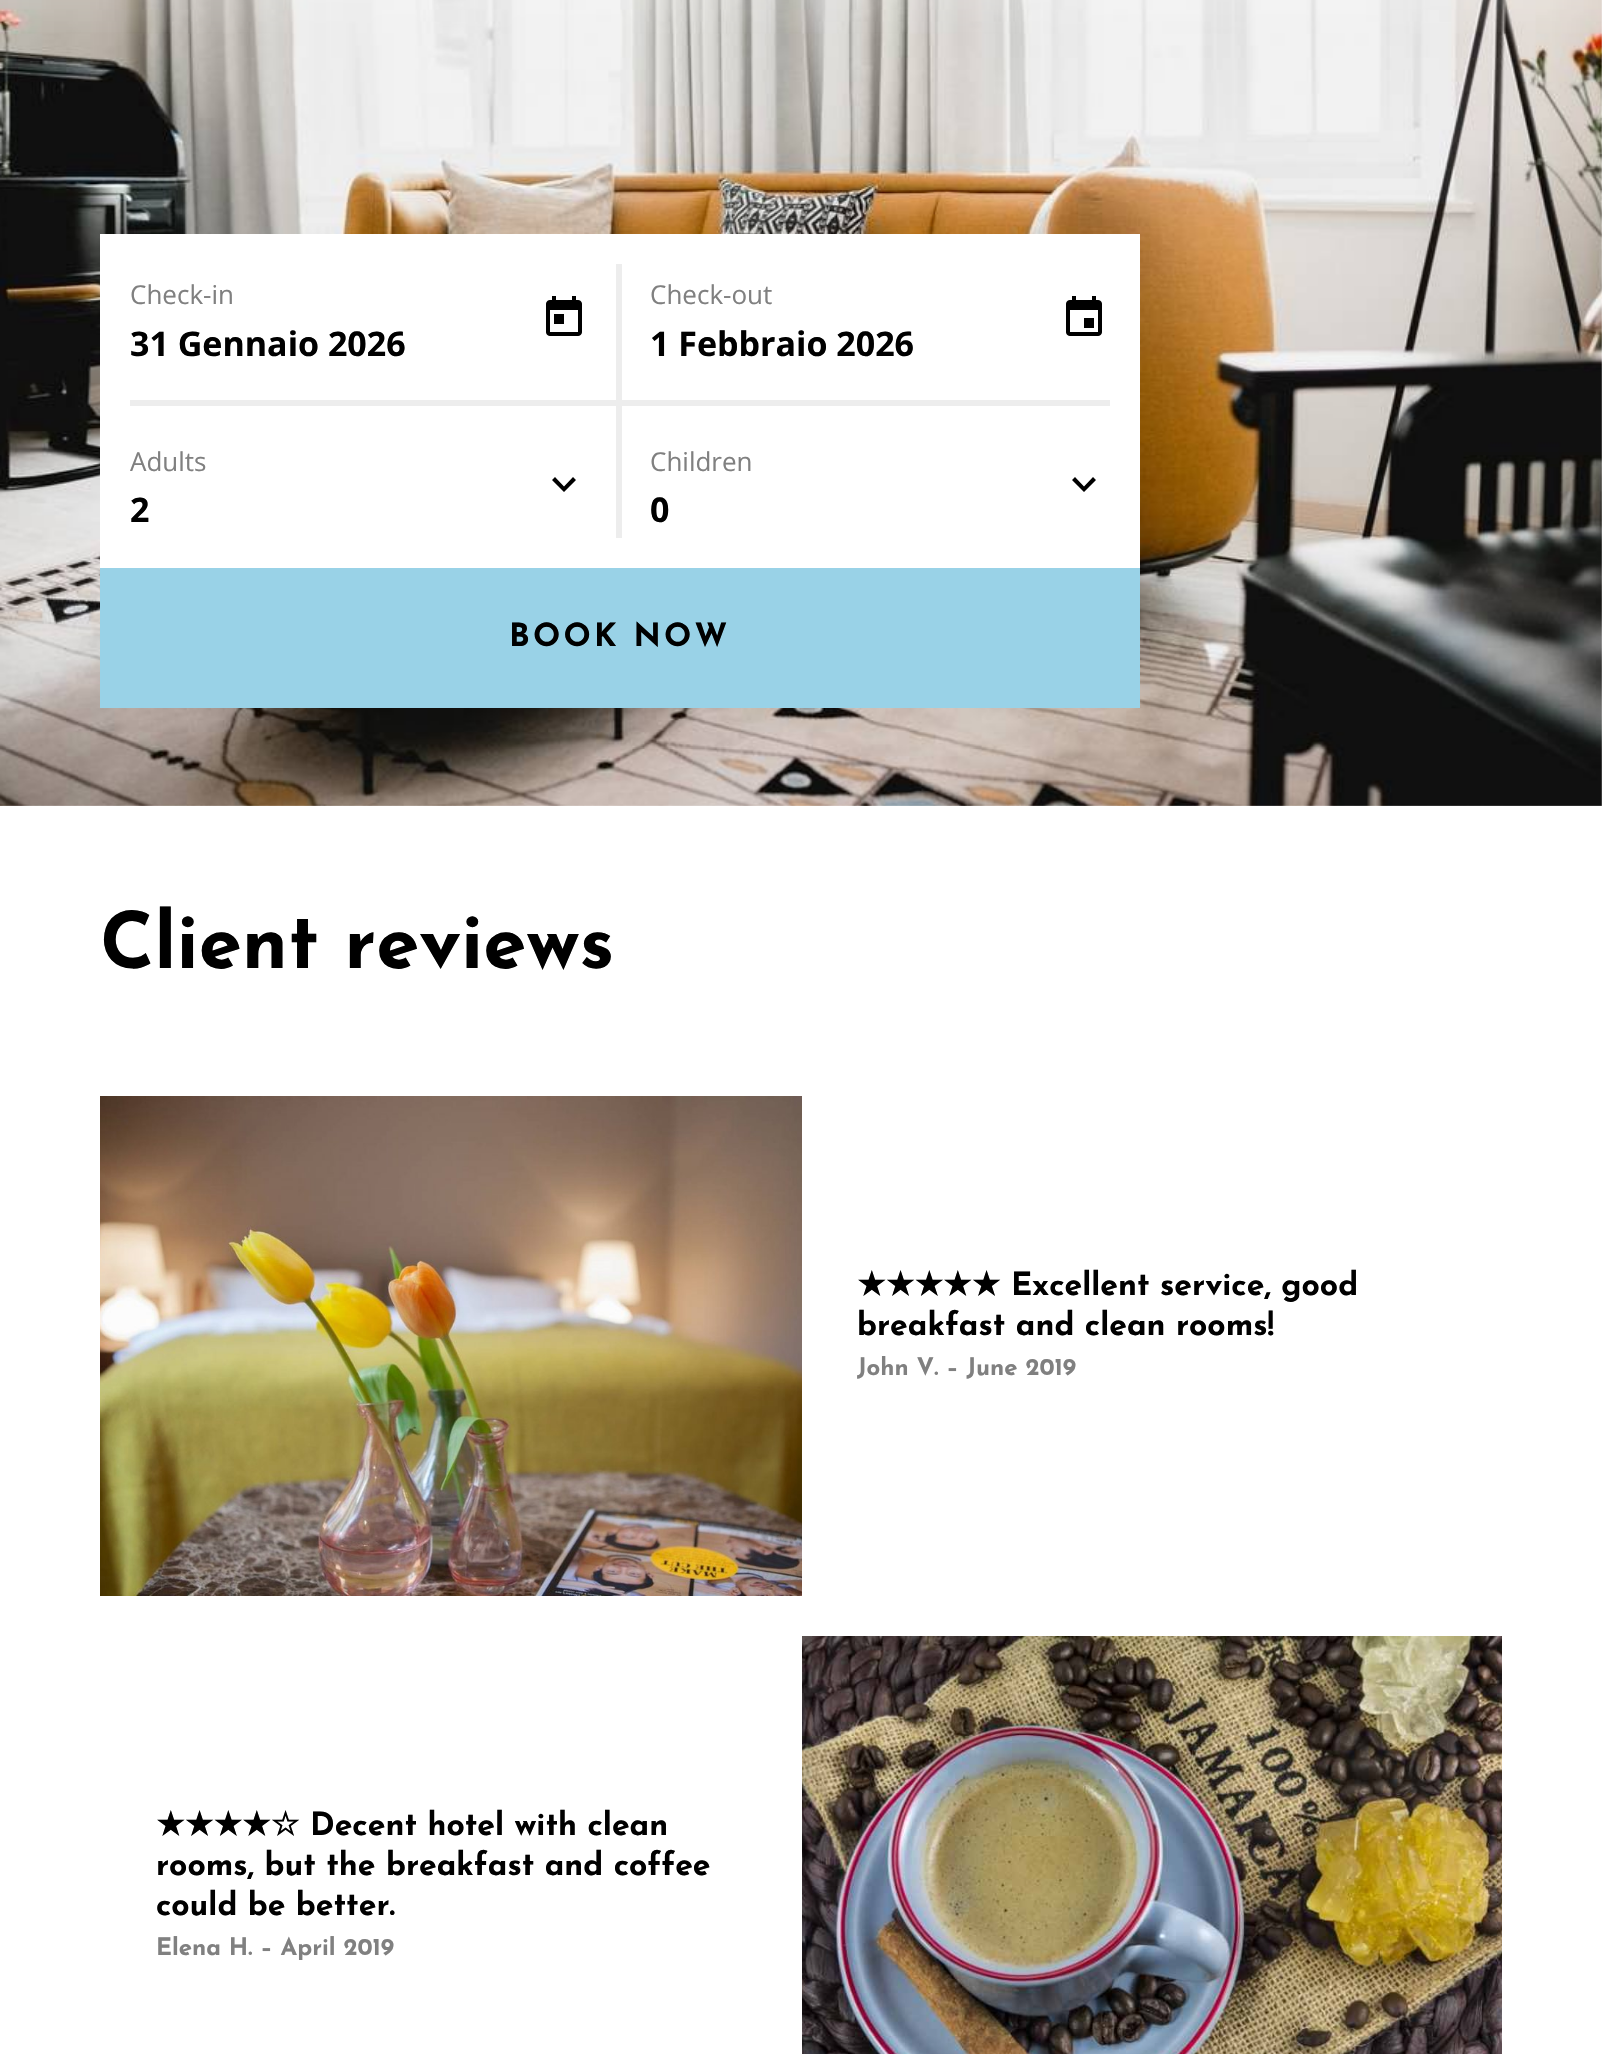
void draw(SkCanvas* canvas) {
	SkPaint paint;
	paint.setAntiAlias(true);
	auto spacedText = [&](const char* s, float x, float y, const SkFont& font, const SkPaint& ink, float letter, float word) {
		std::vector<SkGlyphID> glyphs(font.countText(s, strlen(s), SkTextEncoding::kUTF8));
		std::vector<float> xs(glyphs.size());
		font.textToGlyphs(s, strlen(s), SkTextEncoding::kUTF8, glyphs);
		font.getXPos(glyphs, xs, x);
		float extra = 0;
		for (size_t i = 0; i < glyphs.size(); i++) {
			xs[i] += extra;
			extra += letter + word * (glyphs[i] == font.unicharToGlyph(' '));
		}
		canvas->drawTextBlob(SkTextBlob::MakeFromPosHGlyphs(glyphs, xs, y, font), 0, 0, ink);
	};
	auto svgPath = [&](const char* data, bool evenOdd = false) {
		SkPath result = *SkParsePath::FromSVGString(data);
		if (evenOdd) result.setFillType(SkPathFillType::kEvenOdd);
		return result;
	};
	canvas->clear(0xffffffff);
	canvas->drawImageRect(SkImages::DeferredFromEncodedData(SkData::MakeFromFileName("img1.png")), SkRect::MakeXYWH(0, 0, 1602, 806), SkSamplingOptions());
	{
		const SkColor colors[] = {0x00ffffff, 0xccffffff};
		const float stops[] = {0, 0.7};
		const SkPoint ends[] = {{801, 40}, {801, -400}};
		paint.setShader(SkGradientShader::MakeLinear(ends, colors, stops, 2, SkTileMode::kClamp));
		paint.setAlpha(255);
	}
	canvas->drawRect(SkRect::MakeXYWH(0, 0, 1602, 32), paint);
	paint.setShader(nullptr);
	paint.setColor(0xffffffff);
	canvas->drawRect(SkRect::MakeXYWH(100, 234, 1040, 334), paint);
	SkFont f1(fontMgr->matchFamilyStyle("Open Sans", SkFontStyle::Normal()), 26);
	f1.setSubpixel(true);
	paint.setColor(0xff808080);
	canvas->drawString("Check-in", 130, 304, f1, paint);
	canvas->drawImageRect(SkImages::DeferredFromEncodedData(SkData::MakeFromFileName("img2.png")), SkRect::MakeXYWH(546, 296, 36, 40), SkSamplingOptions());
	paint.setColor(0xffededed);
	canvas->drawRect(SkRect::MakeXYWH(616, 264, 6, 136), paint);
	SkFont f2(fontMgr->matchFamilyStyle("Open Sans", SkFontStyle::Bold()), 34);
	f2.setSubpixel(true);
	paint.setColor(0xff000000);
	canvas->drawString("31 Gennaio 2026", 130, 356, f2, paint);
	paint.setColor(0xff808080);
	canvas->drawString("Check-out", 650, 304, f1, paint);
	canvas->drawImageRect(SkImages::DeferredFromEncodedData(SkData::MakeFromFileName("img3.png")), SkRect::MakeXYWH(1066, 296, 36, 40), SkSamplingOptions());
	paint.setColor(0xff000000);
	canvas->drawString("1 Febbraio 2026", 650, 356, f2, paint);
	paint.setColor(0xffededed);
	canvas->drawRect(SkRect::MakeXYWH(130, 400, 980, 6), paint);
	paint.setColor(0xff808080);
	canvas->drawString("Adults", 130, 471, f1, paint);
	paint.setColor(0xffededed);
	canvas->drawRect(SkRect::MakeXYWH(616, 406, 6, 132), paint);
	paint.setColor(0xff000000);
	canvas->drawPath(svgPath("M555 477L564 486.5L573 477L576 480L564 492L552 480Z"), paint);
	canvas->drawString("2", 130, 522, f2, paint);
	paint.setColor(0xff808080);
	canvas->drawString("Children", 650, 471, f1, paint);
	paint.setColor(0xff000000);
	canvas->drawPath(svgPath("M1075 477L1084 486.5L1093 477L1096 480L1084 492L1072 480Z"), paint);
	canvas->drawString("0", 650, 522, f2, paint);
	paint.setColor(0xff99d2e7);
	canvas->drawRect(SkRect::MakeXYWH(100, 568, 1040, 140), paint);
	SkFont f3(fontMgr->matchFamilyStyle("Josefin Sans", SkFontStyle::Bold()), 32);
	f3.setSubpixel(true);
	paint.setColor(0xff000000);
	spacedText("BOOK NOW", 509, 646, f3, paint, 3.25, 0);
	SkFont f4(fontMgr->matchFamilyStyle("Josefin Sans", SkFontStyle::Bold()), 78);
	f4.setSubpixel(true);
	canvas->drawString("Client reviews", 100, 968, f4, paint);
	canvas->drawImageRect(SkImages::DeferredFromEncodedData(SkData::MakeFromFileName("img4.png")), SkRect::MakeXYWH(100, 1096, 702, 500), SkSamplingOptions());
	SkFont f5(fontMgr->matchFamilyStyle("DejaVu Sans", SkFontStyle::Bold()), 32);
	f5.setSubpixel(true);
	canvas->drawString("★★★★★", 857, 1295, f5, paint);
	canvas->drawString("Excellent service, good", 1011, 1295, f3, paint);
	canvas->drawString("breakfast and clean rooms!", 857, 1335, f3, paint);
	SkFont f6(fontMgr->matchFamilyStyle("Josefin Sans", SkFontStyle::Bold()), 24);
	f6.setSubpixel(true);
	paint.setColor(0xff808080);
	canvas->drawString("John V. – June 2019", 857, 1375, f6, paint);
	paint.setColor(0xff000000);
	canvas->drawString("★★★★☆", 156, 1835, f5, paint);
	canvas->drawString("Decent hotel with clean", 310, 1835, f3, paint);
	canvas->drawString("rooms, but the breakfast and coffee", 156, 1875, f3, paint);
	canvas->drawString("could be better.", 156, 1915, f3, paint);
	paint.setColor(0xff808080);
	canvas->drawString("Elena H. – April 2019", 156, 1955, f6, paint);
	canvas->drawImageRect(SkImages::DeferredFromEncodedData(SkData::MakeFromFileName("img5.png")), SkRect::MakeXYWH(802, 1636, 700, 418), SkSamplingOptions());
}
